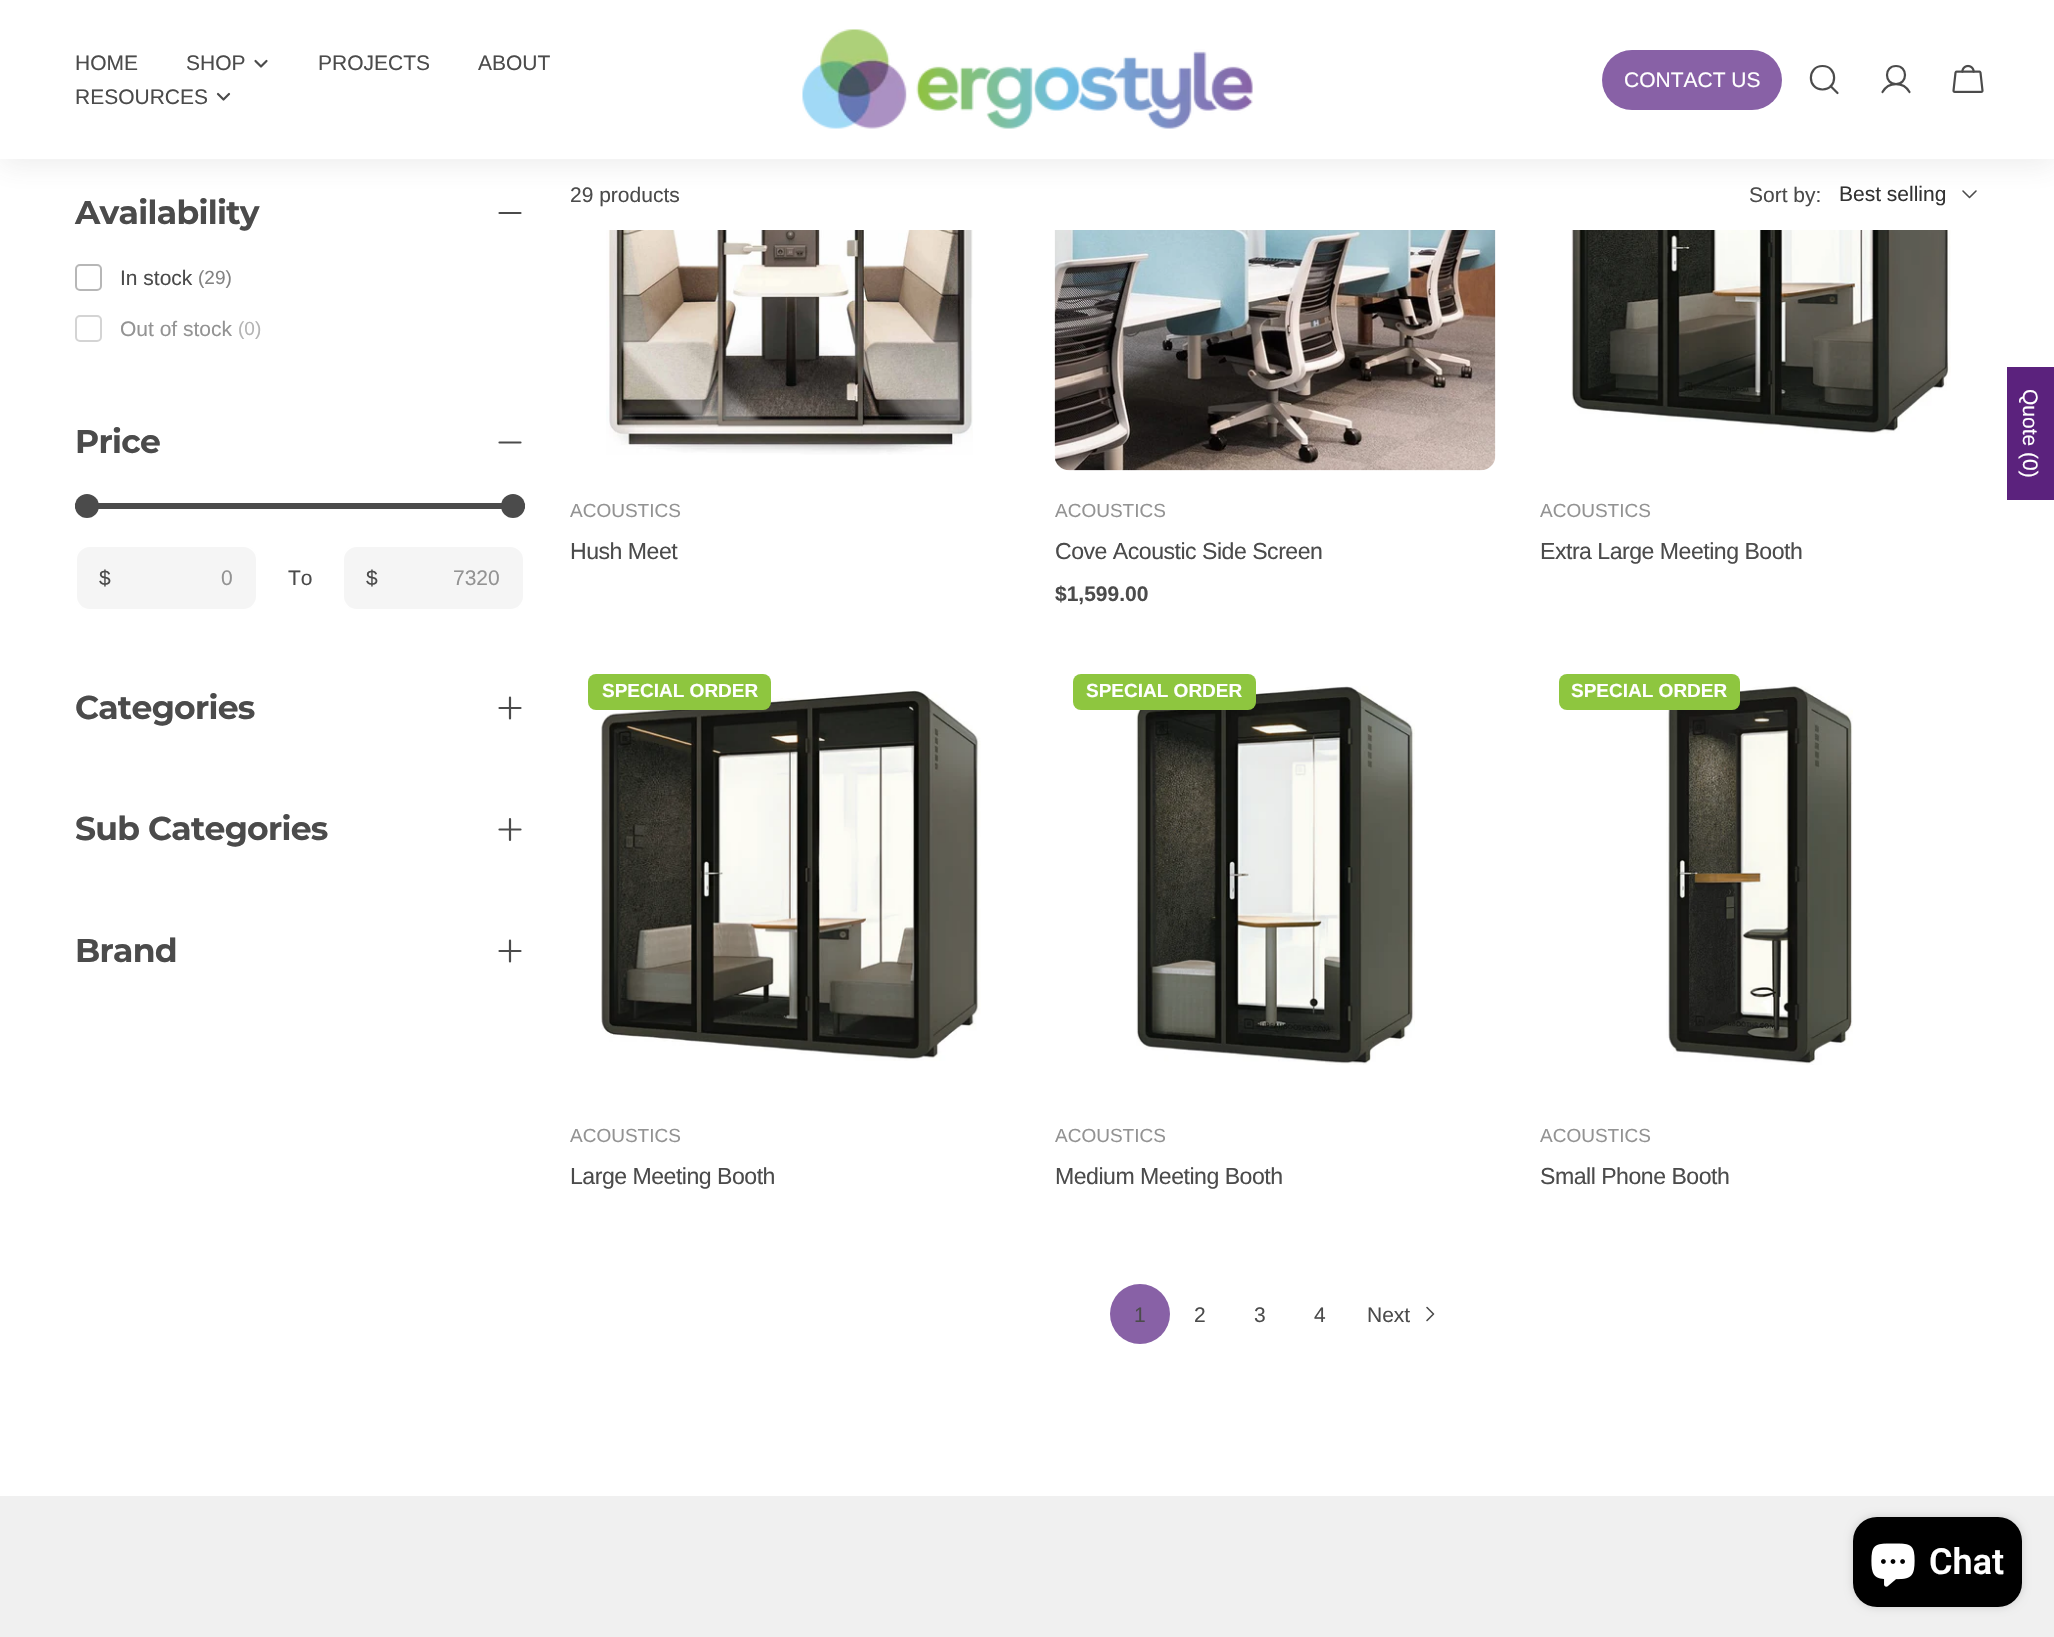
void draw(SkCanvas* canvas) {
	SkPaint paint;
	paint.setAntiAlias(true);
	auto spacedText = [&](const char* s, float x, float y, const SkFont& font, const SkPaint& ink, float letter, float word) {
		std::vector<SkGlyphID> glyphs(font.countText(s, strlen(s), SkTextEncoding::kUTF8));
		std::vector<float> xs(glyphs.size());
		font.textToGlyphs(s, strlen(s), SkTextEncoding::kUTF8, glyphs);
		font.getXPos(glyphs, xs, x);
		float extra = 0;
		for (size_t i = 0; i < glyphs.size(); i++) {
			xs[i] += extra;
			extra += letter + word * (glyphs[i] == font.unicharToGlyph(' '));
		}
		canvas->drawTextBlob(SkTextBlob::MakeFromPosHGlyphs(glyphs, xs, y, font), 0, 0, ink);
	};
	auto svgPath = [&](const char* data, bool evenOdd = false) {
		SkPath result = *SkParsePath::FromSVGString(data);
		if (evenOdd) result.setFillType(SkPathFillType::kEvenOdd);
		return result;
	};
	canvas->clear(0xffffffff);
	paint.setStroke(true);
	paint.setStrokeWidth(1.6);
	paint.setStrokeCap(SkPaint::kRound_Cap);
	paint.setStrokeJoin(SkPaint::kRound_Join);
	paint.setColor(0xff4b4b4b);
	canvas->drawPath(svgPath("M1976 191L1969.5 197.5L1963 191"), paint);
	paint.setStroke(false);
	paint.setColor(0x1a4b4b4b);
	paint.setMaskFilter(SkMaskFilter::MakeBlur(kNormal_SkBlurStyle, 13.5));
	canvas->drawRect(SkRect::MakeXYWH(0, 6, 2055, 159), paint);
	paint.setMaskFilter(nullptr);
	paint.setColor(0xffffffff);
	canvas->drawRect(SkRect::MakeXYWH(0, 0, 2054, 159), paint);
	SkFont f1(fontMgr->matchFamilyStyle("Liberation Sans", SkFontStyle::Normal()), 21);
	f1.setSubpixel(true);
	paint.setColor(0xff4b4b4b);
	canvas->drawString("HOME", 75, 70, f1, paint);
	canvas->drawString("SHOP", 186, 70, f1, paint);
	paint.setStroke(true);
	paint.setStrokeWidth(2.2);
	canvas->drawPath(svgPath("M266.5 61L261 66.5L255.5 61"), paint);
	paint.setStroke(false);
	canvas->drawString("PROJECTS", 318, 70, f1, paint);
	canvas->drawString("ABOUT", 478, 70, f1, paint);
	canvas->drawString("RESOURCES", 75, 104, f1, paint);
	paint.setStroke(true);
	canvas->drawPath(svgPath("M229 94L223.5 99.5L218 94"), paint);
	canvas->drawImageRect(SkImages::DeferredFromEncodedData(SkData::MakeFromFileName("img1.png")), SkRect::MakeXYWH(802, 29, 451, 100), SkSamplingOptions());
	paint.setStroke(false);
	paint.setColor(0xff8861a6);
	canvas->drawRoundRect(SkRect::MakeXYWH(1602, 50, 180, 60), 30, 30, paint);
	paint.setColor(0xffffffff);
	canvas->drawString("CONTACT US", 1624, 87, f1, paint);
	paint.setStroke(true);
	paint.setColor(0xff4b4b4b);
	canvas->drawPath(svgPath("M1822.5 89.5C1838 89.5 1838 66 1822.5 66C1807 66 1807 89.5 1822.5 89.5ZM1830.5 86L1837.5 93"), paint);
	canvas->drawPath(svgPath("M1896 84C1908 84 1908 66 1896 66C1884 66 1884 84 1896 84ZM1882.5 92C1888.5 81.5 1903.5 81.5 1909.5 92"), paint);
	canvas->drawImageRect(SkImages::DeferredFromEncodedData(SkData::MakeFromFileName("img2.png")), SkRect::MakeXYWH(1952, 64, 32, 29), SkSamplingOptions());
	SkFont f2(fontMgr->matchFamilyStyle("Montserrat", SkFontStyle::Bold()), 33);
	f2.setSubpixel(true);
	paint.setStroke(false);
	spacedText("Availability", 75, 224, f2, paint, -0.7, 0);
	paint.setStroke(true);
	canvas->drawPath(svgPath("M499.5 213H520.5M499.5 213H520.5"), paint);
	paint.setStrokeWidth(2);
	paint.setStrokeCap(SkPaint::kButt_Cap);
	paint.setStrokeJoin(SkPaint::kMiter_Join);
	paint.setColor(0xffb7b7b7);
	canvas->drawRoundRect(SkRect::MakeXYWH(76, 265, 25, 25), 4, 4, paint);
	paint.setStroke(false);
	paint.setColor(0xff4b4b4b);
	canvas->drawString("In stock", 120, 285, f1, paint);
	SkFont f3(fontMgr->matchFamilyStyle("Liberation Sans", SkFontStyle::Normal()), 19);
	f3.setSubpixel(true);
	paint.setColor(0xff838383);
	canvas->drawString("(29)", 198, 284, f3, paint);
	paint.setStroke(true);
	paint.setColor(0xffd4d4d4);
	canvas->drawRoundRect(SkRect::MakeXYWH(76, 316, 25, 25), 4, 4, paint);
	paint.setStroke(false);
	paint.setColor(0xff939393);
	canvas->drawString("Out of stock", 120, 336, f1, paint);
	paint.setColor(0xffb4b4b4);
	canvas->drawString("(0)", 238, 335, f3, paint);
	paint.setColor(0xff4b4b4b);
	spacedText("Price", 75, 453, f2, paint, -0.7, 0);
	paint.setStroke(true);
	paint.setStrokeWidth(2.2);
	paint.setStrokeCap(SkPaint::kRound_Cap);
	paint.setStrokeJoin(SkPaint::kRound_Join);
	canvas->drawPath(svgPath("M499.5 442.5H520.5M499.5 442.5H520.5"), paint);
	paint.setStroke(false);
	canvas->drawRoundRect(SkRect::MakeXYWH(75, 503, 450, 6), 1.5, 1.5, paint);
	canvas->drawCircle(87, 506, 12, paint);
	canvas->drawCircle(513, 506, 12, paint);
	paint.setColor(0xfff5f5f5);
	canvas->drawRoundRect(SkRect::MakeXYWH(76, 546, 181, 64), 14, 14, paint);
	paint.setStroke(true);
	paint.setStrokeWidth(2);
	paint.setStrokeCap(SkPaint::kButt_Cap);
	paint.setStrokeJoin(SkPaint::kMiter_Join);
	paint.setColor(0xffffffff);
	canvas->drawRoundRect(SkRect::MakeXYWH(76, 546, 181, 64), 14, 14, paint);
	paint.setStroke(false);
	paint.setColor(0xff4b4b4b);
	canvas->drawString("$", 99, 585, f1, paint);
	paint.setColor(0xff939393);
	canvas->drawString("0", 221, 585, f1, paint);
	paint.setColor(0xff4b4b4b);
	canvas->drawString("To", 288, 585, f1, paint);
	paint.setColor(0xfff5f5f5);
	canvas->drawRoundRect(SkRect::MakeXYWH(343, 546, 181, 64), 14, 14, paint);
	paint.setStroke(true);
	paint.setColor(0xffffffff);
	canvas->drawRoundRect(SkRect::MakeXYWH(343, 546, 181, 64), 14, 14, paint);
	paint.setStroke(false);
	paint.setColor(0xff4b4b4b);
	canvas->drawString("$", 366, 585, f1, paint);
	paint.setColor(0xff939393);
	canvas->drawString("7320", 453, 585, f1, paint);
	paint.setColor(0xff4b4b4b);
	spacedText("Categories", 75, 719, f2, paint, -0.7, 0);
	paint.setStroke(true);
	paint.setStrokeWidth(2.2);
	paint.setStrokeCap(SkPaint::kRound_Cap);
	paint.setStrokeJoin(SkPaint::kRound_Join);
	canvas->drawPath(svgPath("M499.5 708H520.5M510 697.5V718.5"), paint);
	paint.setStroke(false);
	spacedText("Sub Categories", 75, 840, f2, paint, -0.7, 0);
	paint.setStroke(true);
	canvas->drawPath(svgPath("M499.5 829.5H520.5M510 819V840"), paint);
	paint.setStroke(false);
	spacedText("Brand", 75, 962, f2, paint, -0.7, 0);
	paint.setStroke(true);
	canvas->drawPath(svgPath("M499.5 951H520.5M510 940.5V961.5"), paint);
	paint.setStroke(false);
	canvas->drawString("29 products", 570, 202, f1, paint);
	canvas->drawString("Sort by:", 1749, 202, f1, paint);
	paint.setColor(0xff333333);
	canvas->drawString("Best selling", 1839, 201, f1, paint);
	canvas->drawImageRect(SkImages::DeferredFromEncodedData(SkData::MakeFromFileName("img3.png")), SkRect::MakeXYWH(606, 230, 367, 225), SkSamplingOptions());
	paint.setColor(0xff939393);
	canvas->drawString("ACOUSTICS", 570, 517, f3, paint);
	SkFont f4(fontMgr->matchFamilyStyle("Liberation Sans", SkFontStyle::Normal()), 23.1);
	f4.setSubpixel(true);
	paint.setColor(0xff4b4b4b);
	spacedText("Hush Meet", 570, 559, f4, paint, -0.5, 0);
	canvas->drawImageRect(SkImages::DeferredFromEncodedData(SkData::MakeFromFileName("img4.png")), SkRect::MakeXYWH(1054, 230, 442, 241), SkSamplingOptions());
	paint.setColor(0xff939393);
	canvas->drawString("ACOUSTICS", 1055, 517, f3, paint);
	paint.setColor(0xff4b4b4b);
	spacedText("Cove Acoustic Side Screen", 1055, 559, f4, paint, -0.5, 0);
	SkFont f5(fontMgr->matchFamilyStyle("Liberation Sans", SkFontStyle::Bold()), 21);
	f5.setSubpixel(true);
	canvas->drawString("$1,599.00", 1055, 601, f5, paint);
	canvas->drawImageRect(SkImages::DeferredFromEncodedData(SkData::MakeFromFileName("img5.png")), SkRect::MakeXYWH(1571, 230, 380, 204), SkSamplingOptions());
	paint.setColor(0xff939393);
	canvas->drawString("ACOUSTICS", 1540, 517, f3, paint);
	paint.setColor(0xff4b4b4b);
	spacedText("Extra Large Meeting Booth", 1540, 559, f4, paint, -0.5, 0);
	canvas->drawImageRect(SkImages::DeferredFromEncodedData(SkData::MakeFromFileName("img6.png")), SkRect::MakeXYWH(601, 690, 380, 371), SkSamplingOptions());
	paint.setColor(0xff8ec63f);
	canvas->drawRoundRect(SkRect::MakeXYWH(588, 674, 183, 36), 8, 8, paint);
	SkFont f6(fontMgr->matchFamilyStyle("Liberation Sans", SkFontStyle::Bold()), 19);
	f6.setSubpixel(true);
	paint.setColor(0xffffffff);
	canvas->drawString("SPECIAL ORDER", 602, 697, f6, paint);
	paint.setColor(0xff939393);
	canvas->drawString("ACOUSTICS", 570, 1142, f3, paint);
	paint.setColor(0xff4b4b4b);
	spacedText("Large Meeting Booth", 570, 1184, f4, paint, -0.5, 0);
	canvas->drawImageRect(SkImages::DeferredFromEncodedData(SkData::MakeFromFileName("img7.png")), SkRect::MakeXYWH(1136, 686, 279, 379), SkSamplingOptions());
	paint.setColor(0xff8ec63f);
	canvas->drawRoundRect(SkRect::MakeXYWH(1073, 674, 183, 36), 8, 8, paint);
	paint.setColor(0xffffffff);
	canvas->drawString("SPECIAL ORDER", 1086, 697, f6, paint);
	paint.setColor(0xff939393);
	canvas->drawString("ACOUSTICS", 1055, 1142, f3, paint);
	paint.setColor(0xff4b4b4b);
	spacedText("Medium Meeting Booth", 1055, 1184, f4, paint, -0.5, 0);
	canvas->drawImageRect(SkImages::DeferredFromEncodedData(SkData::MakeFromFileName("img8.png")), SkRect::MakeXYWH(1666, 686, 187, 379), SkSamplingOptions());
	paint.setColor(0xff8ec63f);
	canvas->drawRoundRect(SkRect::MakeXYWH(1559, 674, 181, 36), 8, 8, paint);
	paint.setColor(0xffffffff);
	canvas->drawString("SPECIAL ORDER", 1571, 697, f6, paint);
	paint.setColor(0xff939393);
	canvas->drawString("ACOUSTICS", 1540, 1142, f3, paint);
	paint.setColor(0xff4b4b4b);
	spacedText("Small Phone Booth", 1540, 1184, f4, paint, -0.5, 0);
	paint.setColor(0xff8861a6);
	canvas->drawCircle(1140, 1314, 30, paint);
	paint.setColor(0xff4b4b4b);
	canvas->drawString("1", 1134, 1322, f1, paint);
	canvas->drawString("2", 1194, 1322, f1, paint);
	canvas->drawString("3", 1254, 1322, f1, paint);
	canvas->drawString("4", 1314, 1322, f1, paint);
	canvas->drawString("Next", 1367, 1322, f1, paint);
	paint.setStroke(true);
	paint.setStrokeWidth(1.6);
	canvas->drawPath(svgPath("M1427 1307.5L1433.5 1314L1427 1320.5"), paint);
	paint.setStroke(false);
	paint.setColor(0xfff0f0f0);
	canvas->drawRect(SkRect::MakeXYWH(0, 1496, 2054, 141), paint);
	paint.setColor(0xff5b227d);
	canvas->drawRect(SkRect::MakeXYWH(2007, 367, 47, 133), paint);
	paint.setColor(0xffffffff);
	canvas->save();
	canvas->rotate(90, 2023, 389);
	canvas->drawString("Quote (0)", 2023, 389, f1, paint);
	canvas->restore();
	paint.setColor(0x26000000);
	paint.setMaskFilter(SkMaskFilter::MakeBlur(kNormal_SkBlurStyle, 4));
	canvas->drawRoundRect(SkRect::MakeXYWH(1853, 1517, 169, 90), 24, 24, paint);
	paint.setMaskFilter(nullptr);
	paint.setColor(0xff000000);
	canvas->drawRoundRect(SkRect::MakeXYWH(1853, 1517, 169, 90), 24, 24, paint);
	canvas->drawImageRect(SkImages::DeferredFromEncodedData(SkData::MakeFromFileName("img9.png")), SkRect::MakeXYWH(1871, 1543, 44, 44), SkSamplingOptions());
	SkFont f7(fontMgr->matchFamilyStyle("Roboto", SkFontStyle(600, SkFontStyle::kNormal_Width, SkFontStyle::kUpright_Slant)), 36);
	f7.setSubpixel(true);
	paint.setColor(0xffffffff);
	canvas->drawString("Chat", 1929, 1574, f7, paint);
}
